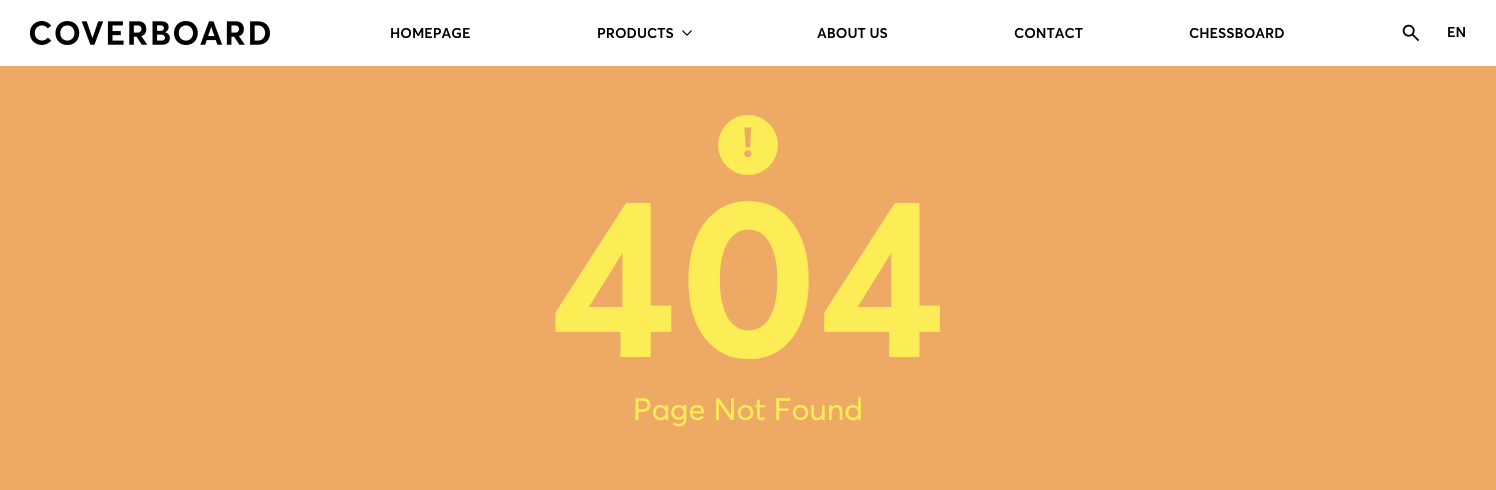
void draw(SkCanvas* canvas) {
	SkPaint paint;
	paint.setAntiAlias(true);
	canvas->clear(0xffffffff);
	canvas->drawImageRect(SkImages::DeferredFromEncodedData(SkData::MakeFromFileName("img1.png")), SkRect::MakeXYWH(30, 21, 240, 24), SkSamplingOptions());
	SkFont f1(fontMgr->matchFamilyStyle("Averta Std", SkFontStyle(600, SkFontStyle::kNormal_Width, SkFontStyle::kUpright_Slant)), 14);
	f1.setSubpixel(true);
	paint.setColor(0xff000000);
	canvas->drawString("HOMEPAGE", 390, 38, f1, paint);
	canvas->drawString("PRODUCTS", 597, 38, f1, paint);
	canvas->drawImageRect(SkImages::DeferredFromEncodedData(SkData::MakeFromFileName("img2.png")), SkRect::MakeXYWH(682, 30, 10, 6), SkSamplingOptions());
	canvas->drawString("ABOUT US", 817, 38, f1, paint);
	canvas->drawString("CONTACT", 1014, 38, f1, paint);
	canvas->drawString("CHESSBOARD", 1189, 38, f1, paint);
	canvas->drawImageRect(SkImages::DeferredFromEncodedData(SkData::MakeFromFileName("img3.png")), SkRect::MakeXYWH(1402, 24, 18, 18), SkSamplingOptions());
	canvas->drawString("EN", 1447, 37, f1, paint);
	paint.setColor(0xffeea965);
	canvas->drawRect(SkRect::MakeXYWH(0, 66, 1496, 424), paint);
	paint.setColor(0xfffced56);
	canvas->drawCircle(748, 145, 30, paint);
	SkFont f2(fontMgr->matchFamilyStyle("Averta Std", SkFontStyle(800, SkFontStyle::kNormal_Width, SkFontStyle::kUpright_Slant)), 40);
	f2.setSubpixel(true);
	paint.setColor(0xffeea965);
	canvas->drawString("!", 742, 157, f2, paint);
	SkFont f3(fontMgr->matchFamilyStyle("Averta Std", SkFontStyle::Bold()), 224);
	f3.setSubpixel(true);
	paint.setColor(0xfffced56);
	canvas->drawString("404", 550, 357, f3, paint);
	SkFont f4(fontMgr->matchFamilyStyle("Averta Std", SkFontStyle::Normal()), 30.5);
	f4.setSubpixel(true);
	canvas->drawString("Page Not Found", 633, 420, f4, paint);
}
